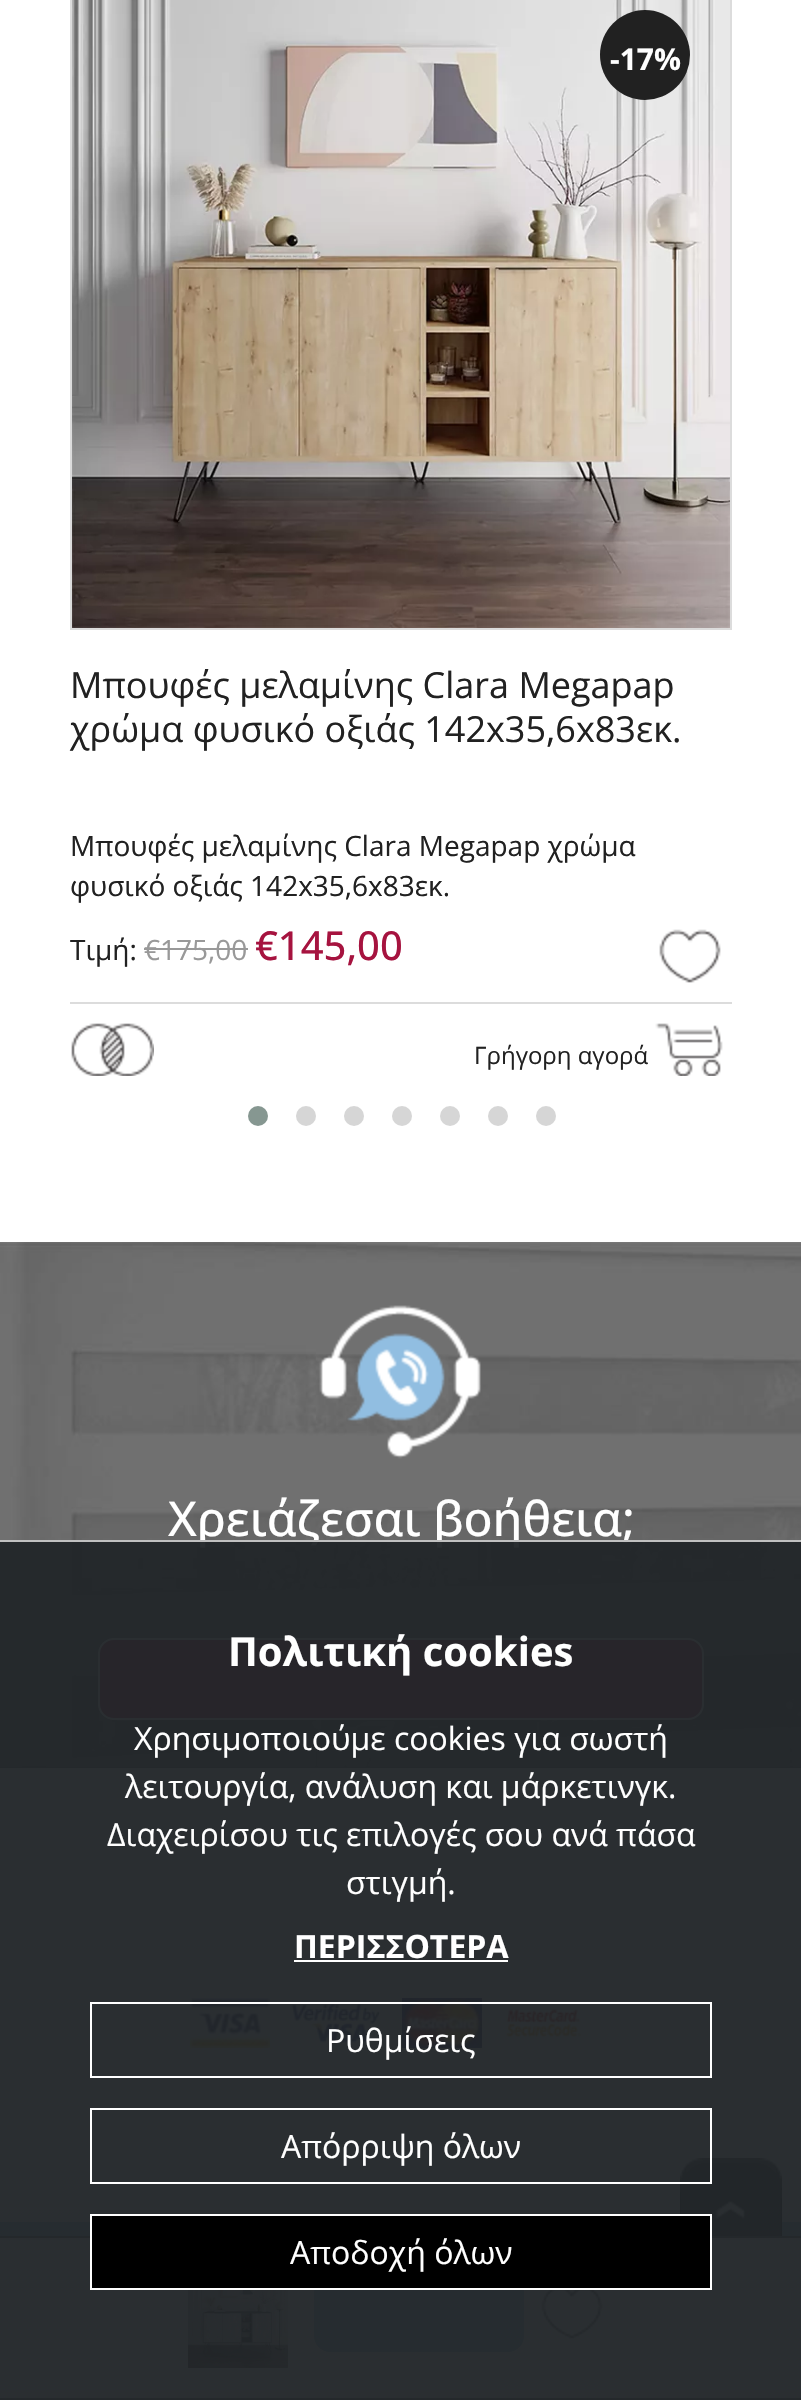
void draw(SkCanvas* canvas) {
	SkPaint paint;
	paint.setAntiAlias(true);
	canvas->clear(0xffffffff);
	paint.setStroke(true);
	paint.setStrokeWidth(2);
	paint.setColor(0xffdcdcdc);
	canvas->drawRect(SkRect::MakeXYWH(71, -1, 660, 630), paint);
	canvas->drawImageRect(SkImages::DeferredFromEncodedData(SkData::MakeFromFileName("img1.png")), SkRect::MakeXYWH(72, 0, 658, 628), SkSamplingOptions());
	paint.setStroke(false);
	paint.setColor(0xff212121);
	canvas->drawCircle(645, 55, 45, paint);
	SkFont f1(fontMgr->matchFamilyStyle("Open Sans", SkFontStyle::Bold()), 30);
	f1.setSubpixel(true);
	paint.setColor(0xffffffff);
	canvas->drawString("-17%", 610, 70, f1, paint);
	SkFont f2(fontMgr->matchFamilyStyle("Open Sans", SkFontStyle::Normal()), 36);
	f2.setSubpixel(true);
	paint.setColor(0xff212121);
	canvas->drawString("Μπουφές μελαμίνης Clara Megapap", 70, 698, f2, paint);
	canvas->drawString("χρώμα φυσικό οξιάς 142x35,6x83εκ.", 70, 742, f2, paint);
	SkFont f3(fontMgr->matchFamilyStyle("Open Sans", SkFontStyle::Normal()), 28);
	f3.setSubpixel(true);
	canvas->drawString("Μπουφές μελαμίνης Clara Megapap χρώμα", 70, 856, f3, paint);
	canvas->drawString("φυσικό οξιάς 142x35,6x83εκ.", 70, 896, f3, paint);
	canvas->drawString("Τιμή:", 70, 960, f3, paint);
	paint.setColor(0xff999999);
	canvas->drawString("€175,00", 144, 960, f3, paint);
	canvas->drawRect(SkRect::MakeXYWH(144, 948, 104, 2), paint);
	SkFont f4(fontMgr->matchFamilyStyle("Open Sans", SkFontStyle(500, SkFontStyle::kNormal_Width, SkFontStyle::kUpright_Slant)), 40);
	f4.setSubpixel(true);
	paint.setColor(0xffa6133f);
	canvas->drawString("€145,00", 255, 960, f4, paint);
	canvas->drawImageRect(SkImages::DeferredFromEncodedData(SkData::MakeFromFileName("img2.png")), SkRect::MakeXYWH(659, 929, 62, 54), SkSamplingOptions());
	paint.setColor(0xffdcdcdc);
	canvas->drawRect(SkRect::MakeXYWH(70, 1002, 662, 2), paint);
	canvas->drawImageRect(SkImages::DeferredFromEncodedData(SkData::MakeFromFileName("img3.png")), SkRect::MakeXYWH(71, 1023, 83, 53), SkSamplingOptions());
	SkFont f5(fontMgr->matchFamilyStyle("Open Sans", SkFontStyle::Normal()), 24);
	f5.setSubpixel(true);
	paint.setColor(0xff212121);
	canvas->drawString("Γρήγορη αγορά", 474, 1064, f5, paint);
	canvas->drawImageRect(SkImages::DeferredFromEncodedData(SkData::MakeFromFileName("img4.png")), SkRect::MakeXYWH(655, 1023, 68, 53), SkSamplingOptions());
	paint.setColor(0xff869791);
	canvas->drawCircle(258, 1116, 10, paint);
	paint.setColor(0xffd6d6d6);
	canvas->drawCircle(306, 1116, 10, paint);
	canvas->drawCircle(354, 1116, 10, paint);
	canvas->drawCircle(402, 1116, 10, paint);
	canvas->drawCircle(450, 1116, 10, paint);
	canvas->drawCircle(498, 1116, 10, paint);
	canvas->drawCircle(546, 1116, 10, paint);
	canvas->drawImageRect(SkImages::DeferredFromEncodedData(SkData::MakeFromFileName("img5.png")), SkRect::MakeXYWH(0, 1242, 801, 526), SkSamplingOptions());
	canvas->drawImageRect(SkImages::DeferredFromEncodedData(SkData::MakeFromFileName("img6.png")), SkRect::MakeXYWH(319, 1305, 162, 154), SkSamplingOptions());
	SkFont f6(fontMgr->matchFamilyStyle("Open Sans", SkFontStyle(500, SkFontStyle::kNormal_Width, SkFontStyle::kUpright_Slant)), 48);
	f6.setSubpixel(true);
	paint.setColor(0xffffffff);
	canvas->drawString("Χρειάζεσαι βοήθεια;", 168, 1536, f6, paint);
	paint.setColor(0xffa6133f);
	canvas->drawRoundRect(SkRect::MakeXYWH(99, 1639, 604, 80), 15, 15, paint);
	paint.setStroke(true);
	paint.setColor(0xffffffff);
	canvas->drawRoundRect(SkRect::MakeXYWH(99, 1639, 604, 80), 15, 15, paint);
	paint.setStroke(false);
	paint.setColor(0xffc1c1c1);
	canvas->drawRect(SkRect::MakeXYWH(0, 1540, 801, 2), paint);
	paint.setColor(0xfff7f7f7);
	canvas->drawRect(SkRect::MakeXYWH(0, 1864, 801, 358), paint);
	canvas->drawImageRect(SkImages::DeferredFromEncodedData(SkData::MakeFromFileName("img7.png")), SkRect::MakeXYWH(190, 1998, 80, 50), SkSamplingOptions());
	canvas->drawImageRect(SkImages::DeferredFromEncodedData(SkData::MakeFromFileName("img8.png")), SkRect::MakeXYWH(286, 1998, 100, 50), SkSamplingOptions());
	canvas->drawImageRect(SkImages::DeferredFromEncodedData(SkData::MakeFromFileName("img9.png")), SkRect::MakeXYWH(402, 1998, 80, 50), SkSamplingOptions());
	canvas->drawImageRect(SkImages::DeferredFromEncodedData(SkData::MakeFromFileName("img10.png")), SkRect::MakeXYWH(498, 1998, 90, 50), SkSamplingOptions());
	paint.setColor(0xff8bb4d2);
	canvas->drawRect(SkRect::MakeXYWH(0, 2222, 801, 14), paint);
	canvas->drawImageRect(SkImages::DeferredFromEncodedData(SkData::MakeFromFileName("img11.png")), SkRect::MakeXYWH(680, 2158, 102, 78), SkSamplingOptions());
	paint.setColor(0xff535353);
	canvas->drawRect(SkRect::MakeXYWH(0, 2236, 801, 2), paint);
	canvas->drawRect(SkRect::MakeXYWH(0, 2398, 801, 2), paint);
	canvas->drawImageRect(SkImages::DeferredFromEncodedData(SkData::MakeFromFileName("img12.png")), SkRect::MakeXYWH(188, 2290, 100, 78), SkSamplingOptions());
	paint.setColor(0xff8bb4d2);
	canvas->drawRoundRect(SkRect::MakeXYWH(315, 2277, 208, 74), 15, 15, paint);
	paint.setStroke(true);
	canvas->drawRoundRect(SkRect::MakeXYWH(315, 2277, 208, 74), 15, 15, paint);
	canvas->drawImageRect(SkImages::DeferredFromEncodedData(SkData::MakeFromFileName("img13.png")), SkRect::MakeXYWH(541, 2290, 62, 49), SkSamplingOptions());
	paint.setStroke(false);
	paint.setColor(0xf5212529);
	canvas->drawRect(SkRect::MakeXYWH(0, 1542, 801, 858), paint);
	SkFont f7(fontMgr->matchFamilyStyle("Open Sans", SkFontStyle::Bold()), 40);
	f7.setSubpixel(true);
	paint.setColor(0xffffffff);
	canvas->drawString("Πολιτική cookies", 228, 1666, f7, paint);
	SkFont f8(fontMgr->matchFamilyStyle("Open Sans", SkFontStyle::Normal()), 32);
	f8.setSubpixel(true);
	canvas->drawString("Χρησιμοποιούμε cookies για σωστή", 134, 1750, f8, paint);
	canvas->drawString("λειτουργία, ανάλυση και μάρκετινγκ.", 125, 1798, f8, paint);
	canvas->drawString("Διαχειρίσου τις επιλογές σου ανά πάσα", 107, 1846, f8, paint);
	canvas->drawString("στιγμή.", 346, 1894, f8, paint);
	SkFont f9(fontMgr->matchFamilyStyle("Open Sans", SkFontStyle::Bold()), 32);
	f9.setSubpixel(true);
	canvas->drawString("ΠΕΡΙΣΣΟΤΕΡΑ", 294, 1958, f9, paint);
	canvas->drawRect(SkRect::MakeXYWH(294, 1960, 214, 2), paint);
	paint.setStroke(true);
	canvas->drawRect(SkRect::MakeXYWH(91, 2003, 620, 74), paint);
	paint.setStroke(false);
	canvas->drawString("Ρυθμίσεις", 326, 2052, f8, paint);
	paint.setStroke(true);
	canvas->drawRect(SkRect::MakeXYWH(91, 2109, 620, 74), paint);
	paint.setStroke(false);
	canvas->drawString("Απόρριψη όλων", 281, 2158, f8, paint);
	paint.setColor(0xff000000);
	canvas->drawRect(SkRect::MakeXYWH(91, 2215, 620, 74), paint);
	paint.setStroke(true);
	paint.setColor(0xffffffff);
	canvas->drawRect(SkRect::MakeXYWH(91, 2215, 620, 74), paint);
	paint.setStroke(false);
	canvas->drawString("Αποδοχή όλων", 290, 2264, f8, paint);
}
